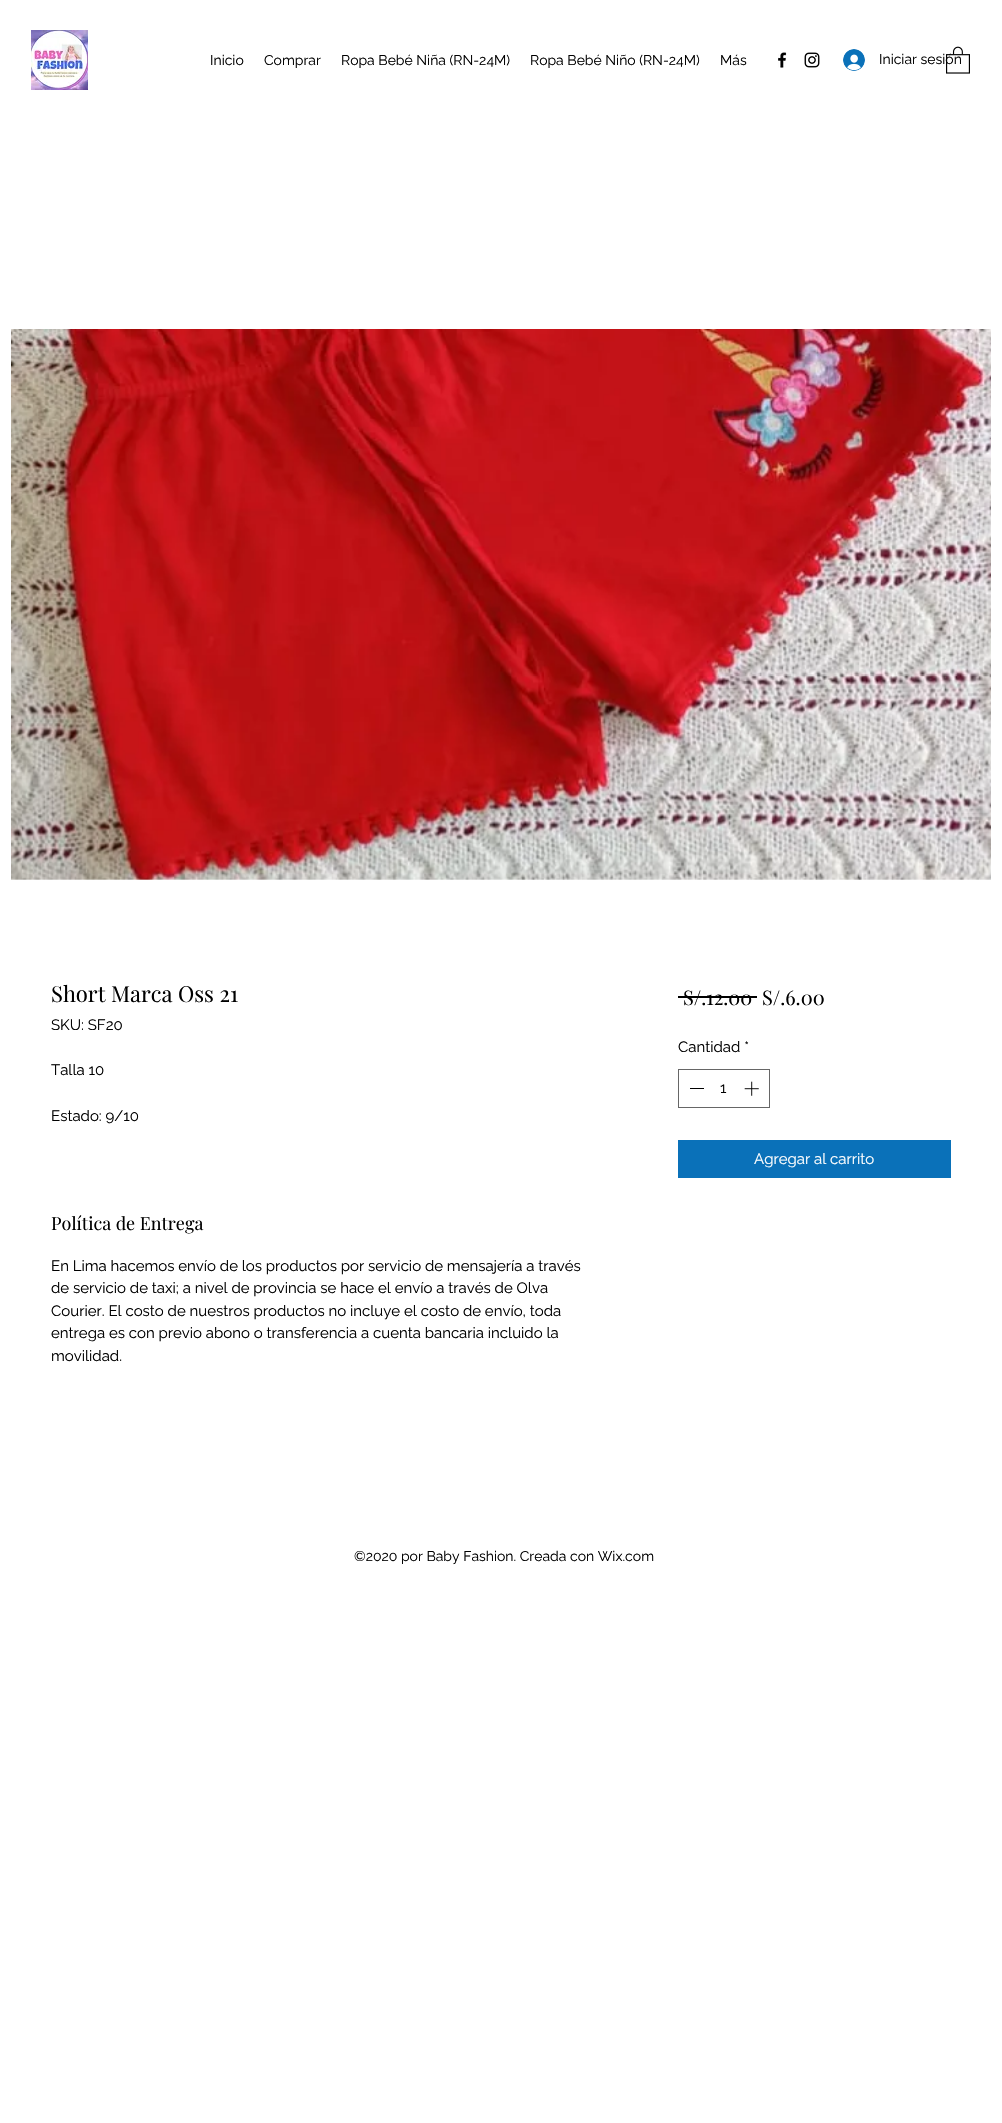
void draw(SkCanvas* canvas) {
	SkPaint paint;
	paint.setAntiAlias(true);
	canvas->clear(0xffffffff);
	canvas->drawImageRect(SkImages::DeferredFromEncodedData(SkData::MakeFromFileName("img1.png")), SkRect::MakeXYWH(31, 30, 57, 60), SkSamplingOptions());
	canvas->drawImageRect(SkImages::DeferredFromEncodedData(SkData::MakeFromFileName("img2.png")), SkRect::MakeXYWH(778, 52, 9, 16), SkSamplingOptions());
	canvas->drawImageRect(SkImages::DeferredFromEncodedData(SkData::MakeFromFileName("img3.png")), SkRect::MakeXYWH(804, 52, 16, 16), SkSamplingOptions());
	SkFont f1(fontMgr->matchFamilyStyle("Raleway", SkFontStyle::Normal()), 14);
	f1.setSubpixel(true);
	paint.setColor(0xff000000);
	canvas->drawString("Iniciar sesión", 879, 64, f1, paint);
	canvas->drawImageRect(SkImages::DeferredFromEncodedData(SkData::MakeFromFileName("img4.png")), SkRect::MakeXYWH(946, 46, 24, 28), SkSamplingOptions());
	canvas->drawString("Inicio", 210, 65, f1, paint);
	canvas->drawString("Comprar", 264, 65, f1, paint);
	canvas->drawString("Ropa Bebé Niña (RN-24M)", 341, 65, f1, paint);
	canvas->drawString("Ropa Bebé Niño (RN-24M)", 530, 65, f1, paint);
	canvas->drawString("Más", 720, 65, f1, paint);
	canvas->drawImageRect(SkImages::DeferredFromEncodedData(SkData::MakeFromFileName("img5.png")), SkRect::MakeXYWH(843, 49, 22, 22), SkSamplingOptions());
	canvas->drawImageRect(SkImages::DeferredFromEncodedData(SkData::MakeFromFileName("img6.png")), SkRect::MakeXYWH(11, 329, 980, 551), SkSamplingOptions());
	SkFont f2(fontMgr->matchFamilyStyle("Playfair Display", SkFontStyle::Normal()), 22);
	f2.setSubpixel(true);
	canvas->drawString("Short Marca Oss 21", 51, 1002, f2, paint);
	SkFont f3(fontMgr->matchFamilyStyle("Raleway", SkFontStyle::Normal()), 15);
	f3.setSubpixel(true);
	canvas->drawString("SKU: SF20", 51, 1030, f3, paint);
	canvas->drawString("Talla 10", 51, 1075, f3, paint);
	canvas->drawString("Estado: 9/10", 51, 1121, f3, paint);
	SkFont f4(fontMgr->matchFamilyStyle("Playfair Display", SkFontStyle::Normal()), 18);
	f4.setSubpixel(true);
	canvas->drawString("Política de Entrega", 51, 1230, f4, paint);
	canvas->drawString("En Lima hacemos envío de los productos por servicio de mensajería a través", 51, 1271, f3, paint);
	canvas->drawString("de servicio de taxi; a nivel de provincia se hace el envío a través de Olva", 51, 1293, f3, paint);
	canvas->drawString("Courier. El costo de nuestros productos no incluye el costo de envío, toda", 51, 1316, f3, paint);
	canvas->drawString("entrega es con previo abono o transferencia a cuenta bancaria incluido la", 51, 1338, f3, paint);
	canvas->drawString("movilidad.", 51, 1361, f3, paint);
	SkFont f5(fontMgr->matchFamilyStyle("Playfair Display", SkFontStyle::Normal()), 20);
	f5.setSubpixel(true);
	canvas->drawString("S/.12.00", 683, 1005, f5, paint);
	canvas->drawRect(SkRect::MakeXYWH(678, 996, 79, 2), paint);
	canvas->drawString("S/.6.00", 762, 1005, f5, paint);
	canvas->drawString("Cantidad *", 678, 1052, f3, paint);
	paint.setStroke(true);
	paint.setStrokeWidth(1);
	paint.setColor(0xff666666);
	canvas->drawRect(SkRect::MakeXYWH(678.5, 1069.5, 91, 38), paint);
	paint.setStroke(false);
	paint.setColor(0xff000000);
	canvas->drawRect(SkRect::MakeXYWH(690, 1088, 14, 1), paint);
	canvas->drawString("1", 720, 1093, f3, paint);
	canvas->drawImageRect(SkImages::DeferredFromEncodedData(SkData::MakeFromFileName("img7.png")), SkRect::MakeXYWH(744, 1081, 15, 15), SkSamplingOptions());
	paint.setColor(0xff0a71b9);
	canvas->drawRect(SkRect::MakeXYWH(678, 1140, 273, 38), paint);
	paint.setColor(0xffffffff);
	canvas->drawString("Agregar al carrito", 754, 1164, f3, paint);
	paint.setColor(0xff000000);
	canvas->drawString("©2020 por Baby Fashion. Creada con Wix.com", 354, 1561, f1, paint);
}
